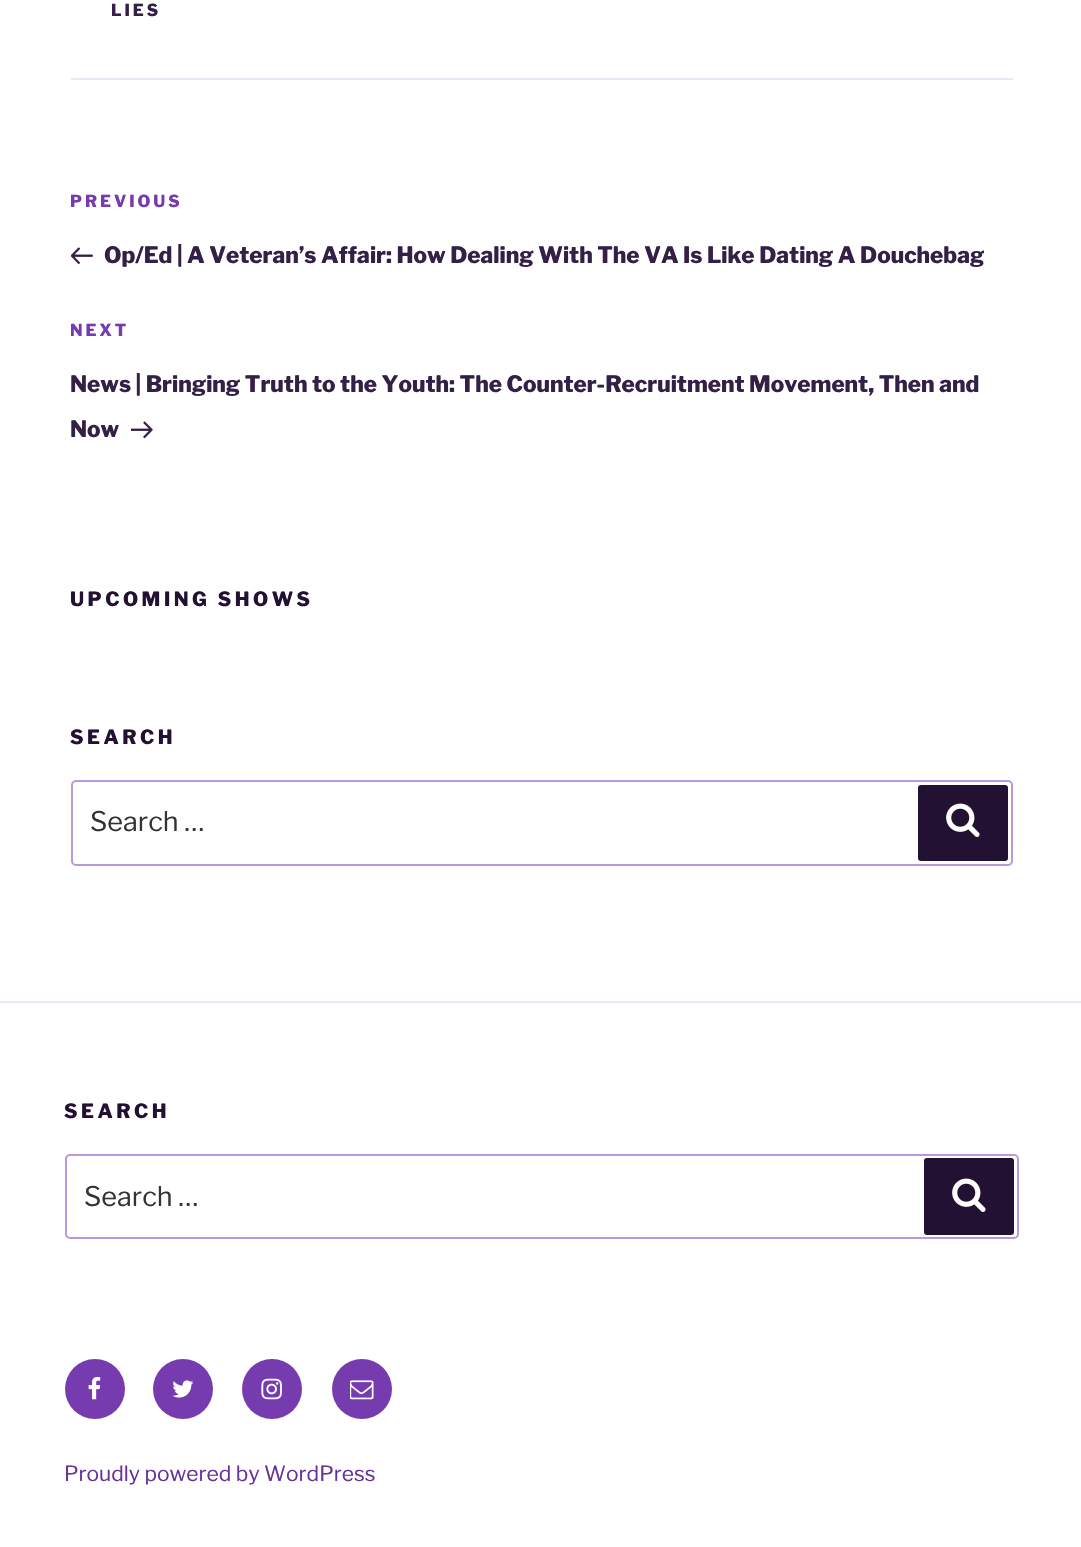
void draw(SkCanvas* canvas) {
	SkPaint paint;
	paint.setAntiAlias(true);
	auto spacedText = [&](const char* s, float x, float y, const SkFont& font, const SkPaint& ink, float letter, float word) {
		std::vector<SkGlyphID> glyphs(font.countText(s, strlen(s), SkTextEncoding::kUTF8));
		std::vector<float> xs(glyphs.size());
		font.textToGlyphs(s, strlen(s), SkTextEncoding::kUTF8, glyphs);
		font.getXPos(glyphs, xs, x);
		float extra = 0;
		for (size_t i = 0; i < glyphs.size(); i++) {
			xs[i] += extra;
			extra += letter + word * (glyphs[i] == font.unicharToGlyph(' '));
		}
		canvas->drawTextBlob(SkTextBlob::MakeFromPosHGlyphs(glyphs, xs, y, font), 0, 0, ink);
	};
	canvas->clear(0xffffffff);
	paint.setColor(0xffede4f6);
	canvas->drawRect(SkRect::MakeXYWH(71, 78, 942, 2), paint);
	SkFont f1(fontMgr->matchFamilyStyle("Libre Franklin", SkFontStyle(800, SkFontStyle::kNormal_Width, SkFontStyle::kUpright_Slant)), 16.5);
	f1.setSubpixel(true);
	paint.setColor(0xff341f47);
	spacedText("LIES", 111, 16, f1, paint, 3, 0);
	paint.setColor(0xff773bb0);
	spacedText("PREVIOUS", 70, 207, f1, paint, 3, 0);
	canvas->drawImageRect(SkImages::DeferredFromEncodedData(SkData::MakeFromFileName("img1.png")), SkRect::MakeXYWH(71, 247, 22, 18), SkSamplingOptions());
	SkFont f2(fontMgr->matchFamilyStyle("Libre Franklin", SkFontStyle(800, SkFontStyle::kNormal_Width, SkFontStyle::kUpright_Slant)), 22.5);
	f2.setSubpixel(true);
	paint.setColor(0xff341f47);
	canvas->drawString("Op/Ed | A Veteran’s Affair: How Dealing With The VA Is Like Dating A Douchebag", 104, 263, f2, paint);
	paint.setColor(0xff773bb0);
	spacedText("NEXT", 70, 336, f1, paint, 3, 0);
	paint.setColor(0xff341f47);
	canvas->drawString("News | Bringing Truth to the Youth: The Counter-Recruitment Movement, Then and", 70, 392, f2, paint);
	canvas->drawString("Now", 70, 437, f2, paint);
	canvas->drawImageRect(SkImages::DeferredFromEncodedData(SkData::MakeFromFileName("img2.png")), SkRect::MakeXYWH(131, 421, 22, 18), SkSamplingOptions());
	SkFont f3(fontMgr->matchFamilyStyle("Libre Franklin", SkFontStyle(800, SkFontStyle::kNormal_Width, SkFontStyle::kUpright_Slant)), 19.5);
	f3.setSubpixel(true);
	paint.setColor(0xff221132);
	spacedText("UPCOMING SHOWS", 70, 606, f3, paint, 3.5, 0);
	spacedText("SEARCH", 70, 744, f3, paint, 3.5, 0);
	paint.setStroke(true);
	paint.setStrokeWidth(2);
	paint.setColor(0xffbb98dd);
	canvas->drawRoundRect(SkRect::MakeXYWH(72, 781, 940, 84), 4, 4, paint);
	SkFont f4(fontMgr->matchFamilyStyle("Libre Franklin", SkFontStyle::Normal()), 27);
	f4.setSubpixel(true);
	paint.setStroke(false);
	paint.setColor(0xff333333);
	canvas->drawString("Search …", 90, 831, f4, paint);
	paint.setColor(0xff221132);
	canvas->drawRoundRect(SkRect::MakeXYWH(918, 785, 90, 76), 3, 3, paint);
	canvas->drawImageRect(SkImages::DeferredFromEncodedData(SkData::MakeFromFileName("img3.png")), SkRect::MakeXYWH(946, 803, 34, 34), SkSamplingOptions());
	paint.setColor(0xffede4f6);
	canvas->drawRect(SkRect::MakeXYWH(0, 1001, 1081, 2), paint);
	paint.setColor(0xff221132);
	spacedText("SEARCH", 64, 1118, f3, paint, 3.5, 0);
	paint.setStroke(true);
	paint.setColor(0xffbb98dd);
	canvas->drawRoundRect(SkRect::MakeXYWH(66, 1155, 952, 83), 4, 4, paint);
	paint.setStroke(false);
	paint.setColor(0xff333333);
	canvas->drawString("Search …", 84, 1206, f4, paint);
	paint.setColor(0xff221132);
	canvas->drawRoundRect(SkRect::MakeXYWH(924, 1158, 90, 77), 3, 3, paint);
	canvas->drawImageRect(SkImages::DeferredFromEncodedData(SkData::MakeFromFileName("img3.png")), SkRect::MakeXYWH(952, 1178, 34, 34), SkSamplingOptions());
	paint.setColor(0xff773bb0);
	canvas->drawCircle(95, 1389, 30, paint);
	canvas->drawImageRect(SkImages::DeferredFromEncodedData(SkData::MakeFromFileName("img4.png")), SkRect::MakeXYWH(88, 1377, 13, 23), SkSamplingOptions());
	canvas->drawCircle(183, 1389, 30, paint);
	canvas->drawImageRect(SkImages::DeferredFromEncodedData(SkData::MakeFromFileName("img5.png")), SkRect::MakeXYWH(172, 1380, 22, 18), SkSamplingOptions());
	canvas->drawCircle(272, 1389, 30, paint);
	canvas->drawImageRect(SkImages::DeferredFromEncodedData(SkData::MakeFromFileName("img6.png")), SkRect::MakeXYWH(261, 1378, 21, 22), SkSamplingOptions());
	canvas->drawCircle(362, 1389, 30, paint);
	canvas->drawImageRect(SkImages::DeferredFromEncodedData(SkData::MakeFromFileName("img7.png")), SkRect::MakeXYWH(350, 1380, 24, 20), SkSamplingOptions());
	SkFont f5(fontMgr->matchFamilyStyle("Libre Franklin", SkFontStyle::Normal()), 21);
	f5.setSubpixel(true);
	paint.setColor(0xff683399);
	canvas->drawString("Proudly powered by WordPress", 64, 1481, f5, paint);
}
